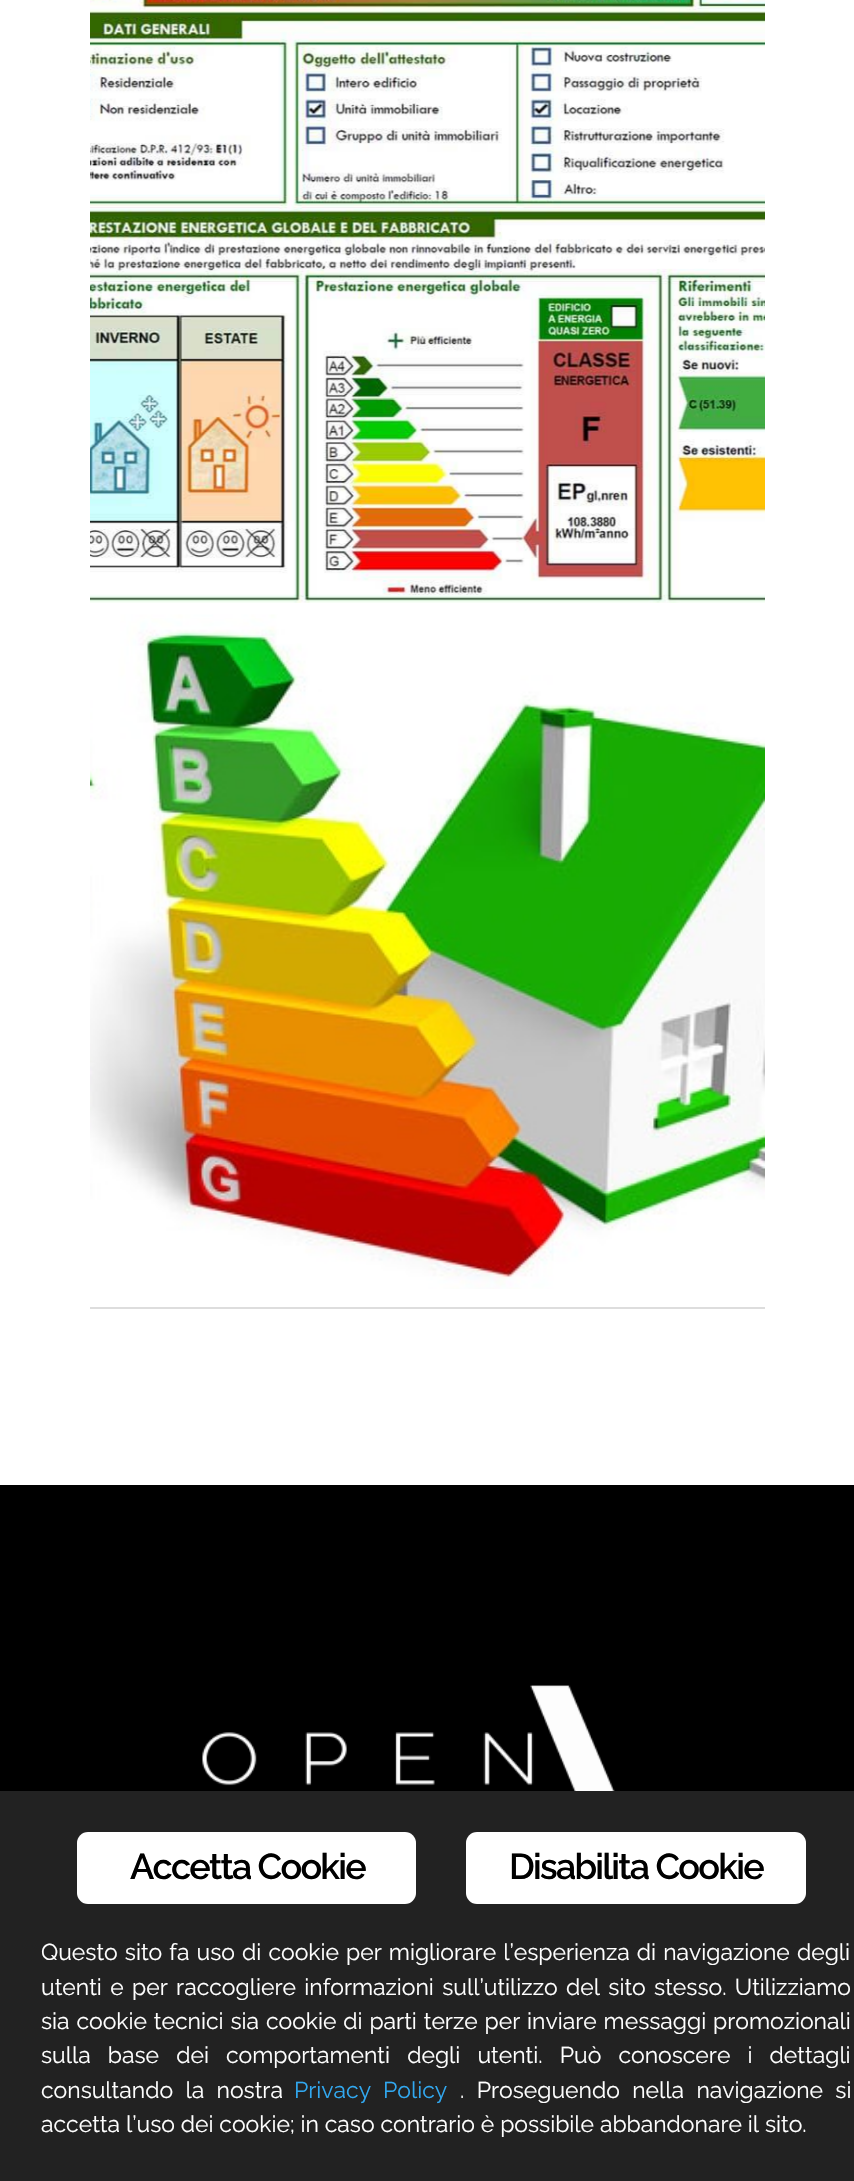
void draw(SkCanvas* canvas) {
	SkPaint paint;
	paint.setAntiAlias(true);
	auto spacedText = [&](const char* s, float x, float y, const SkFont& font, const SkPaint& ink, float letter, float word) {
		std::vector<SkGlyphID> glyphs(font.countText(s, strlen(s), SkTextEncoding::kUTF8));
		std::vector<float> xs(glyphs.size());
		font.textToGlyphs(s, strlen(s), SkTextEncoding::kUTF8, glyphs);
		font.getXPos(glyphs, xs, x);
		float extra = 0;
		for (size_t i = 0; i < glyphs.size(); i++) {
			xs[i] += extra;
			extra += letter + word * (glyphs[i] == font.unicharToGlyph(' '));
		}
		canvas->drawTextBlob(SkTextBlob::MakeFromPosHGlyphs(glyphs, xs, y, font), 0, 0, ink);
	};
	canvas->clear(0xffffffff);
	canvas->drawImageRect(SkImages::DeferredFromEncodedData(SkData::MakeFromFileName("img1.png")), SkRect::MakeXYWH(90, 0, 675, 603), SkSamplingOptions());
	canvas->drawImageRect(SkImages::DeferredFromEncodedData(SkData::MakeFromFileName("img2.png")), SkRect::MakeXYWH(90, 614, 675, 675), SkSamplingOptions());
	paint.setColor(0xffdddddd);
	canvas->drawRect(SkRect::MakeXYWH(90, 1307, 675, 2), paint);
	paint.setColor(0xff000000);
	canvas->drawRect(SkRect::MakeXYWH(0, 1485, 854, 306), paint);
	canvas->drawImageRect(SkImages::DeferredFromEncodedData(SkData::MakeFromFileName("img3.png")), SkRect::MakeXYWH(202, 1685, 413, 106), SkSamplingOptions());
	paint.setColor(0xff222222);
	canvas->drawRect(SkRect::MakeXYWH(0, 1791, 854, 390), paint);
	paint.setColor(0xffffffff);
	canvas->drawRoundRect(SkRect::MakeXYWH(77, 1832, 339, 72), 11, 11, paint);
	SkFont f1(fontMgr->matchFamilyStyle("Raleway", SkFontStyle(600, SkFontStyle::kNormal_Width, SkFontStyle::kUpright_Slant)), 36);
	f1.setSubpixel(true);
	paint.setColor(0xff000000);
	spacedText("Accetta Cookie", 130, 1879, f1, paint, -1.75, 0);
	paint.setColor(0xffffffff);
	canvas->drawRoundRect(SkRect::MakeXYWH(466, 1832, 340, 72), 11, 11, paint);
	paint.setColor(0xff000000);
	spacedText("Disabilita Cookie", 509, 1879, f1, paint, -1.75, 0);
	SkFont f2(fontMgr->matchFamilyStyle("Raleway", SkFontStyle::Normal()), 22.95);
	f2.setSubpixel(true);
	paint.setColor(0xffffffff);
	spacedText("Questo sito fa uso di cookie per migliorare l’esperienza di navigazione degli", 41, 1960, f2, paint, 0, 1.25);
	spacedText("utenti e per raccogliere informazioni sull’utilizzo del sito stesso. Utilizziamo", 41, 1995, f2, paint, 0, 2.5);
	spacedText("sia cookie tecnici sia cookie di parti terze per inviare messaggi promozionali", 41, 2029, f2, paint, 0, 1);
	spacedText("sulla base dei comportamenti degli utenti. Può conoscere i dettagli", 41, 2063, f2, paint, 0, 11.25);
	spacedText("consultando la nostra", 41, 2098, f2, paint, 0, 6.5);
	paint.setColor(0xff31a8f0);
	spacedText("Privacy Policy", 294, 2098, f2, paint, 0, 6);
	paint.setColor(0xffffffff);
	spacedText(". Proseguendo nella navigazione si", 460, 2098, f2, paint, 0, 6.5);
	canvas->drawString("accetta l’uso dei cookie; in caso contrario è possibile abbandonare il sito.", 41, 2132, f2, paint);
}
